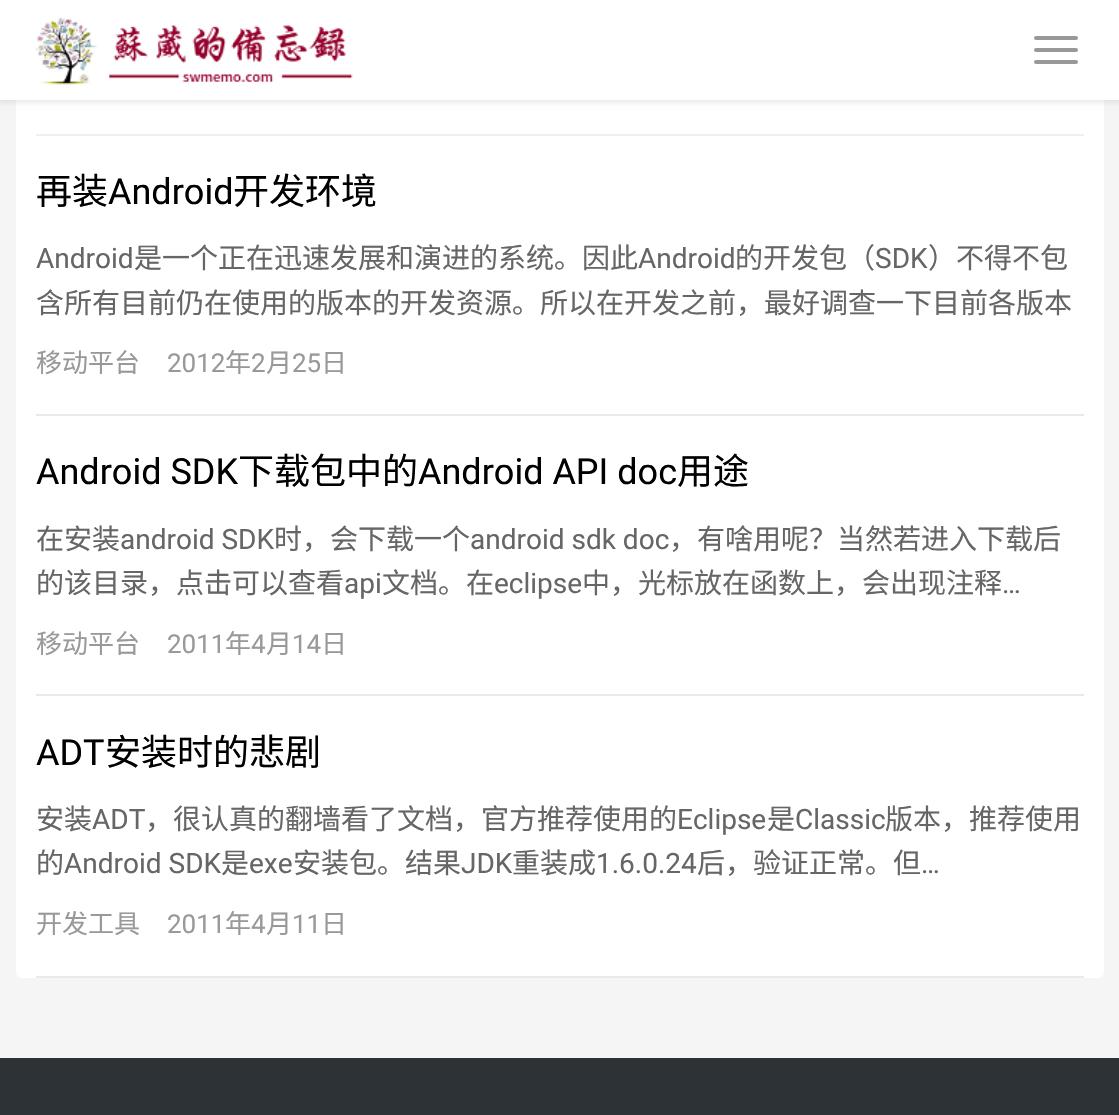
void draw(SkCanvas* canvas) {
	SkPaint paint;
	paint.setAntiAlias(true);
	canvas->clear(0xfff5f5f5);
	paint.setColor(0xffffffff);
	canvas->drawRoundRect(SkRect::MakeXYWH(16, 38, 1088, 940), 6, 6, paint);
	paint.setColor(0x1a000000);
	paint.setMaskFilter(SkMaskFilter::MakeBlur(kNormal_SkBlurStyle, 3));
	canvas->drawRect(SkRect::MakeXYWH(-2, -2, 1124, 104), paint);
	paint.setMaskFilter(nullptr);
	paint.setColor(0xffffffff);
	canvas->drawRect(SkRect::MakeXYWH(0, 0, 1119, 100), paint);
	canvas->drawImageRect(SkImages::DeferredFromEncodedData(SkData::MakeFromFileName("img1.png")), SkRect::MakeXYWH(35, 17, 318, 68), SkSamplingOptions());
	paint.setColor(0xff999999);
	canvas->drawRoundRect(SkRect::MakeXYWH(1034, 36, 44, 4), 2, 2, paint);
	canvas->drawRoundRect(SkRect::MakeXYWH(1034, 48, 44, 4), 2, 2, paint);
	canvas->drawRoundRect(SkRect::MakeXYWH(1034, 60, 44, 4), 2, 2, paint);
	paint.setColor(0xffefefef);
	canvas->drawRect(SkRect::MakeXYWH(36, 134, 1048, 2), paint);
	paint.setColor(0xffe9e9e9);
	canvas->drawRect(SkRect::MakeXYWH(36, 414, 1048, 2), paint);
	SkFont f1(fontMgr->matchFamilyStyle("Noto Sans CJK SC", SkFontStyle::Normal()), 36);
	f1.setSubpixel(true);
	paint.setColor(0xff000000);
	canvas->drawString("再装", 36, 204, f1, paint);
	SkFont f2(fontMgr->matchFamilyStyle("Roboto", SkFontStyle::Normal()), 36);
	f2.setSubpixel(true);
	canvas->drawString("Android", 108, 204, f2, paint);
	canvas->drawString("开发环境", 233, 204, f1, paint);
	SkFont f3(fontMgr->matchFamilyStyle("Roboto", SkFontStyle::Normal()), 28);
	f3.setSubpixel(true);
	paint.setColor(0xff666666);
	canvas->drawString("Android", 36, 268, f3, paint);
	SkFont f4(fontMgr->matchFamilyStyle("Noto Sans CJK SC", SkFontStyle::Normal()), 28);
	f4.setSubpixel(true);
	canvas->drawString("是一个正在迅速发展和演进的系统。因此", 134, 268, f4, paint);
	canvas->drawString("Android", 638, 268, f3, paint);
	canvas->drawString("的开发包（", 735, 268, f4, paint);
	canvas->drawString("SDK", 875, 268, f3, paint);
	canvas->drawString("）不得不包", 928, 268, f4, paint);
	canvas->drawString("含所有目前仍在使用的版本的开发资源。所以在开发之前，最好调查一下目前各版本", 36, 313, f4, paint);
	SkFont f5(fontMgr->matchFamilyStyle("Noto Sans CJK SC", SkFontStyle::Normal()), 26);
	f5.setSubpixel(true);
	paint.setColor(0xff999999);
	canvas->drawString("移动平台", 36, 372, f5, paint);
	SkFont f6(fontMgr->matchFamilyStyle("Roboto", SkFontStyle::Normal()), 26);
	f6.setSubpixel(true);
	canvas->drawString("2012", 167, 372, f6, paint);
	canvas->drawString("年", 225, 372, f5, paint);
	canvas->drawString("2", 251, 372, f6, paint);
	canvas->drawString("月", 266, 372, f5, paint);
	canvas->drawString("25", 292, 372, f6, paint);
	canvas->drawString("日", 321, 372, f5, paint);
	paint.setColor(0xffe9e9e9);
	canvas->drawRect(SkRect::MakeXYWH(36, 694, 1048, 2), paint);
	paint.setColor(0xff000000);
	canvas->drawString("Android SDK", 36, 484, f2, paint);
	canvas->drawString("下载包中的", 238, 484, f1, paint);
	canvas->drawString("Android API doc", 418, 484, f2, paint);
	canvas->drawString("用途", 677, 484, f1, paint);
	paint.setColor(0xff666666);
	canvas->drawString("在安装", 36, 549, f4, paint);
	canvas->drawString("android SDK", 120, 549, f3, paint);
	canvas->drawString("时，会下载一个", 274, 549, f4, paint);
	canvas->drawString("android sdk doc", 470, 549, f3, paint);
	canvas->drawString("，有啥用呢？当然若进入下载后", 669, 549, f4, paint);
	canvas->drawString("的该目录，点击可以查看", 36, 593, f4, paint);
	canvas->drawString("api", 344, 593, f3, paint);
	canvas->drawString("文档。在", 382, 593, f4, paint);
	canvas->drawString("eclipse", 494, 593, f3, paint);
	canvas->drawString("中，光标放在函数上，会出现注释", 582, 593, f4, paint);
	canvas->drawString("…", 1002, 593, f3, paint);
	paint.setColor(0xff999999);
	canvas->drawString("移动平台", 36, 653, f5, paint);
	canvas->drawString("2011", 167, 653, f6, paint);
	canvas->drawString("年", 225, 653, f5, paint);
	canvas->drawString("4", 251, 653, f6, paint);
	canvas->drawString("月", 266, 653, f5, paint);
	canvas->drawString("14", 292, 653, f6, paint);
	canvas->drawString("日", 321, 653, f5, paint);
	paint.setColor(0xffe9e9e9);
	canvas->drawRect(SkRect::MakeXYWH(36, 976, 1048, 2), paint);
	paint.setColor(0xff000000);
	canvas->drawString("ADT", 36, 765, f2, paint);
	canvas->drawString("安装时的悲剧", 105, 765, f1, paint);
	paint.setColor(0xff666666);
	canvas->drawString("安装", 36, 829, f4, paint);
	canvas->drawString("ADT", 92, 829, f3, paint);
	canvas->drawString("，很认真的翻墙看了文档，官方推荐使用的", 145, 829, f4, paint);
	canvas->drawString("Eclipse", 677, 829, f3, paint);
	canvas->drawString("是", 767, 829, f4, paint);
	canvas->drawString("Classic", 795, 829, f3, paint);
	canvas->drawString("版本，推荐使用", 885, 829, f4, paint);
	canvas->drawString("的", 36, 873, f4, paint);
	canvas->drawString("Android SDK", 64, 873, f3, paint);
	canvas->drawString("是", 221, 873, f4, paint);
	canvas->drawString("exe", 249, 873, f3, paint);
	canvas->drawString("安装包。结果", 293, 873, f4, paint);
	canvas->drawString("JDK", 461, 873, f3, paint);
	canvas->drawString("重装成", 512, 873, f4, paint);
	canvas->drawString("1.6.0.24", 596, 873, f3, paint);
	canvas->drawString("后，验证正常。但", 697, 873, f4, paint);
	canvas->drawString("…", 921, 873, f3, paint);
	paint.setColor(0xff999999);
	canvas->drawString("开发工具", 36, 933, f5, paint);
	canvas->drawString("2011", 167, 933, f6, paint);
	canvas->drawString("年", 225, 933, f5, paint);
	canvas->drawString("4", 251, 933, f6, paint);
	canvas->drawString("月", 266, 933, f5, paint);
	canvas->drawString("11", 292, 933, f6, paint);
	canvas->drawString("日", 321, 933, f5, paint);
	paint.setColor(0xff2d3237);
	canvas->drawRect(SkRect::MakeXYWH(0, 1058, 1119, 57), paint);
}
